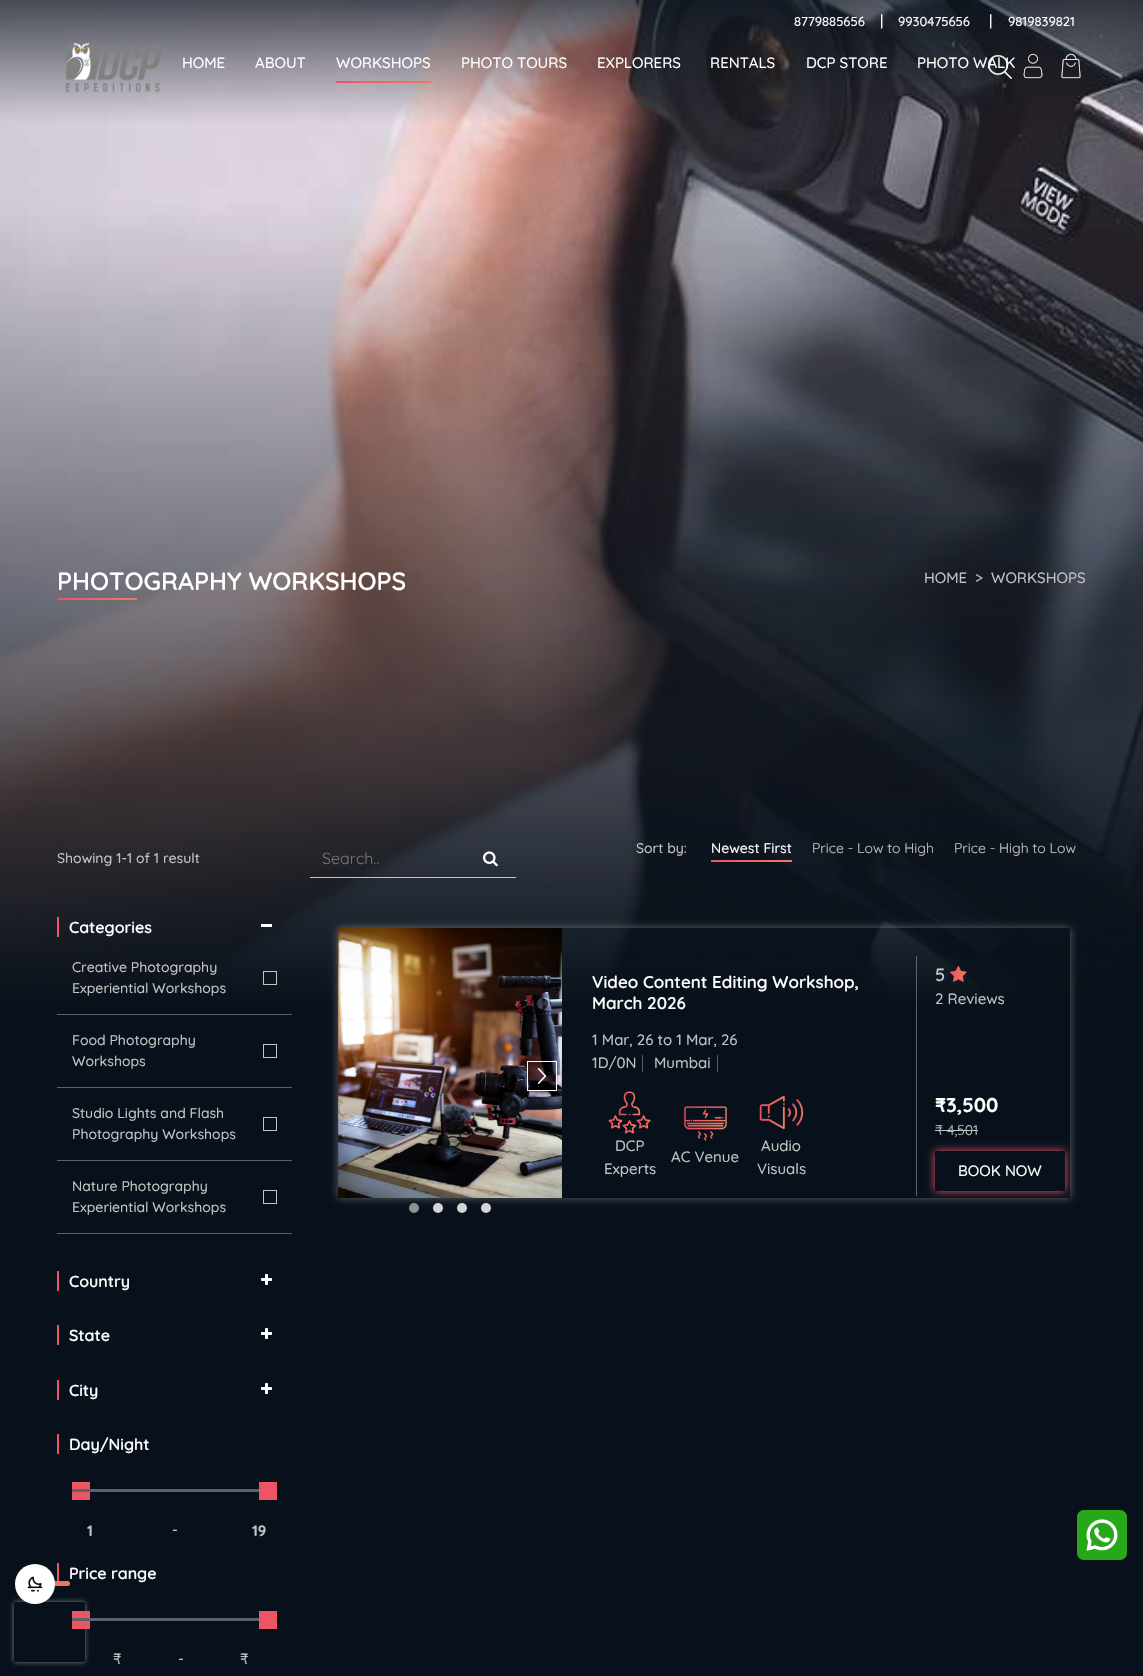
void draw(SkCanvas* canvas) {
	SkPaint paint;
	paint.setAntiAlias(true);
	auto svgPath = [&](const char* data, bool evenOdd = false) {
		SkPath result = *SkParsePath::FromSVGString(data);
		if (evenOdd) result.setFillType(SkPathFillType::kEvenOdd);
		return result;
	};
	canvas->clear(0xff08111b);
	canvas->drawImageRect(SkImages::DeferredFromEncodedData(SkData::MakeFromFileName("img6.png")), SkRect::MakeXYWH(0, 0, 1143, 1006), SkSamplingOptions());
	SkFont f1(fontMgr->matchFamilyStyle("Quicksand", SkFontStyle(500, SkFontStyle::kNormal_Width, SkFontStyle::kUpright_Slant)), 13);
	f1.setSubpixel(true);
	paint.setColor(0xffffffff);
	canvas->drawString("8779885656", 794, 26, f1, paint);
	SkFont f2(fontMgr->matchFamilyStyle("Quicksand", SkFontStyle(500, SkFontStyle::kNormal_Width, SkFontStyle::kUpright_Slant)), 15);
	f2.setSubpixel(true);
	canvas->drawString("|", 880, 26, f2, paint);
	canvas->drawString("9930475656", 898, 26, f1, paint);
	canvas->drawString("|", 989, 26, f2, paint);
	canvas->drawString("9819839821", 1008, 26, f1, paint);
	canvas->drawImageRect(SkImages::DeferredFromEncodedData(SkData::MakeFromFileName("img1.png")), SkRect::MakeXYWH(65, 42, 97, 50), SkSamplingOptions());
	canvas->drawString("HOME", 182, 68, f2, paint);
	canvas->drawString("ABOUT", 255, 68, f2, paint);
	canvas->drawImageRect(SkImages::DeferredFromEncodedData(SkData::MakeFromFileName("img2.png")), SkRect::MakeXYWH(336, 81, 95, 2), SkSamplingOptions());
	canvas->drawString("WORKSHOPS", 336, 68, f2, paint);
	canvas->drawString("PHOTO TOURS", 461, 68, f2, paint);
	canvas->drawString("EXPLORERS", 597, 68, f2, paint);
	canvas->drawString("RENTALS", 710, 68, f2, paint);
	canvas->drawString("DCP STORE", 806, 68, f2, paint);
	canvas->drawString("PHOTO WALK", 917, 68, f2, paint);
	canvas->drawImageRect(SkImages::DeferredFromEncodedData(SkData::MakeFromFileName("img3.png")), SkRect::MakeXYWH(988, 55, 24, 24), SkSamplingOptions());
	canvas->drawImageRect(SkImages::DeferredFromEncodedData(SkData::MakeFromFileName("img4.png")), SkRect::MakeXYWH(1023, 53, 20, 26), SkSamplingOptions());
	canvas->drawImageRect(SkImages::DeferredFromEncodedData(SkData::MakeFromFileName("img5.png")), SkRect::MakeXYWH(1061, 53, 20, 26), SkSamplingOptions());
	SkFont f3(fontMgr->matchFamilyStyle("Quicksand", SkFontStyle(600, SkFontStyle::kNormal_Width, SkFontStyle::kUpright_Slant)), 25);
	f3.setSubpixel(true);
	canvas->drawString("PHOTOGRAPHY WORKSHOPS", 57, 590, f3, paint);
	canvas->drawImageRect(SkImages::DeferredFromEncodedData(SkData::MakeFromFileName("img7.png")), SkRect::MakeXYWH(57, 598, 80, 2), SkSamplingOptions());
	paint.setColor(0xffc3c3c3);
	canvas->drawString("HOME", 924, 583, f2, paint);
	canvas->drawString(">", 975, 583, f2, paint);
	canvas->drawString("WORKSHOPS", 991, 583, f2, paint);
	SkFont f4(fontMgr->matchFamilyStyle("Quicksand", SkFontStyle(500, SkFontStyle::kNormal_Width, SkFontStyle::kUpright_Slant)), 14);
	f4.setSubpixel(true);
	canvas->drawString("Sort by:", 636, 853, f4, paint);
	paint.setColor(0xffffffff);
	canvas->drawString("Newest First", 711, 853, f4, paint);
	canvas->drawImageRect(SkImages::DeferredFromEncodedData(SkData::MakeFromFileName("img8.png")), SkRect::MakeXYWH(711, 860, 81, 2), SkSamplingOptions());
	SkFont f5(fontMgr->matchFamilyStyle("Quicksand", SkFontStyle::Normal()), 14);
	f5.setSubpixel(true);
	paint.setColor(0xffc3c3c3);
	canvas->drawString("Price - Low to High", 812, 853, f5, paint);
	canvas->drawString("Price - High to Low", 954, 853, f5, paint);
	canvas->drawString("Showing 1-1 of 1 result", 57, 863, f4, paint);
	canvas->drawRect(SkRect::MakeXYWH(310, 877, 206, 1), paint);
	canvas->drawImageRect(SkImages::DeferredFromEncodedData(SkData::MakeFromFileName("img9.png")), SkRect::MakeXYWH(483, 851, 15, 16), SkSamplingOptions());
	SkFont f6(fontMgr->matchFamilyStyle("Quicksand", SkFontStyle::Normal()), 16);
	f6.setSubpixel(true);
	paint.setColor(0xff6c757d);
	canvas->drawString("Search..", 322, 864, f6, paint);
	paint.setColor(0xffeb5564);
	canvas->drawRect(SkRect::MakeXYWH(57, 917, 2, 20), paint);
	SkFont f7(fontMgr->matchFamilyStyle("Quicksand", SkFontStyle(600, SkFontStyle::kNormal_Width, SkFontStyle::kUpright_Slant)), 16);
	f7.setSubpixel(true);
	paint.setColor(0xffffffff);
	canvas->drawString("Categories", 69, 933, f7, paint);
	canvas->drawRect(SkRect::MakeXYWH(261, 924, 11, 3), paint);
	paint.setColor(0xff5c6269);
	canvas->drawRect(SkRect::MakeXYWH(57, 1014, 235, 1), paint);
	paint.setColor(0xffc3c3c3);
	canvas->drawString("Creative Photography", 72, 972, f4, paint);
	paint.setStroke(true);
	paint.setStrokeWidth(1);
	canvas->drawRect(SkRect::MakeXYWH(263.5, 971.5, 13, 13), paint);
	paint.setStroke(false);
	canvas->drawString("Experiential Workshops", 72, 993, f4, paint);
	paint.setColor(0xff5c6269);
	canvas->drawRect(SkRect::MakeXYWH(57, 1087, 235, 1), paint);
	paint.setColor(0xffc3c3c3);
	canvas->drawString("Food Photography", 72, 1045, f4, paint);
	paint.setStroke(true);
	canvas->drawRect(SkRect::MakeXYWH(263.5, 1044.5, 13, 13), paint);
	paint.setStroke(false);
	canvas->drawString("Workshops", 72, 1066, f4, paint);
	paint.setColor(0xff5c6269);
	canvas->drawRect(SkRect::MakeXYWH(57, 1160, 235, 1), paint);
	paint.setColor(0xffc3c3c3);
	canvas->drawString("Studio Lights and Flash", 72, 1118, f4, paint);
	paint.setStroke(true);
	canvas->drawRect(SkRect::MakeXYWH(263.5, 1117.5, 13, 13), paint);
	paint.setStroke(false);
	canvas->drawString("Photography Workshops", 72, 1139, f4, paint);
	paint.setColor(0xff5c6269);
	canvas->drawRect(SkRect::MakeXYWH(57, 1233, 235, 1), paint);
	paint.setColor(0xffc3c3c3);
	canvas->drawString("Nature Photography", 72, 1191, f4, paint);
	paint.setStroke(true);
	canvas->drawRect(SkRect::MakeXYWH(263.5, 1190.5, 13, 13), paint);
	paint.setStroke(false);
	canvas->drawString("Experiential Workshops", 72, 1212, f4, paint);
	paint.setColor(0xffeb5564);
	canvas->drawRect(SkRect::MakeXYWH(57, 1271, 2, 20), paint);
	paint.setColor(0xffffffff);
	canvas->drawString("Country", 69, 1287, f7, paint);
	canvas->drawImageRect(SkImages::DeferredFromEncodedData(SkData::MakeFromFileName("img10.png")), SkRect::MakeXYWH(261, 1274, 11, 11), SkSamplingOptions());
	paint.setColor(0xffeb5564);
	canvas->drawRect(SkRect::MakeXYWH(57, 1325, 2, 20), paint);
	paint.setColor(0xffffffff);
	canvas->drawString("State", 69, 1341, f7, paint);
	canvas->drawImageRect(SkImages::DeferredFromEncodedData(SkData::MakeFromFileName("img10.png")), SkRect::MakeXYWH(261, 1328, 11, 11), SkSamplingOptions());
	paint.setColor(0xffeb5564);
	canvas->drawRect(SkRect::MakeXYWH(57, 1380, 2, 20), paint);
	paint.setColor(0xffffffff);
	canvas->drawString("City", 69, 1396, f7, paint);
	canvas->drawImageRect(SkImages::DeferredFromEncodedData(SkData::MakeFromFileName("img10.png")), SkRect::MakeXYWH(261, 1383, 11, 11), SkSamplingOptions());
	paint.setColor(0xffeb5564);
	canvas->drawRect(SkRect::MakeXYWH(57, 1434, 2, 20), paint);
	paint.setColor(0xffffffff);
	canvas->drawString("Day/Night", 69, 1450, f7, paint);
	paint.setColor(0xffeb5564);
	canvas->drawRect(SkRect::MakeXYWH(72, 1482, 18, 18), paint);
	paint.setColor(0xff5c6269);
	canvas->drawRoundRect(SkRect::MakeXYWH(72, 1489, 205, 3), 1, 1, paint);
	paint.setColor(0xffeb5564);
	canvas->drawRect(SkRect::MakeXYWH(259, 1482, 18, 18), paint);
	SkFont f8(fontMgr->matchFamilyStyle("Quicksand", SkFontStyle::Bold()), 15);
	f8.setSubpixel(true);
	paint.setColor(0xffc3c3c3);
	canvas->drawString("1", 87, 1536, f8, paint);
	canvas->drawString("-", 172, 1535, f2, paint);
	canvas->drawString("19", 252, 1536, f8, paint);
	paint.setColor(0xffeb5564);
	canvas->drawRect(SkRect::MakeXYWH(57, 1563, 2, 20), paint);
	paint.setColor(0xffffffff);
	canvas->drawString("Price range", 69, 1579, f7, paint);
	canvas->save();
	canvas->clipPath(svgPath("M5 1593H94V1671H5ZM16 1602H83C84 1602 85 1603 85 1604V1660C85 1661 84 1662 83 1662H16C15 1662 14 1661 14 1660V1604C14 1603 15 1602 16 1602Z", true), true);
	paint.setColor(0xff808080);
	paint.setMaskFilter(SkMaskFilter::MakeBlur(kNormal_SkBlurStyle, 2.5));
	canvas->drawRoundRect(SkRect::MakeXYWH(14, 1602, 71, 60), 2, 2, paint);
	paint.setMaskFilter(nullptr);
	canvas->restore();
	paint.setColor(0xffeb5564);
	canvas->drawRect(SkRect::MakeXYWH(72, 1611, 18, 18), paint);
	paint.setColor(0xff5c6269);
	canvas->drawRoundRect(SkRect::MakeXYWH(72, 1618, 205, 3), 1, 1, paint);
	paint.setColor(0xffeb5564);
	canvas->drawRect(SkRect::MakeXYWH(259, 1611, 18, 18), paint);
	paint.setColor(0xffc3c3c3);
	canvas->drawString("₹", 113, 1664, f2, paint);
	canvas->drawString("-", 178, 1664, f2, paint);
	canvas->drawString("₹", 240, 1664, f2, paint);
	canvas->save();
	canvas->clipPath(svgPath("M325 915H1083V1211H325ZM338 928H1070V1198H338Z", true), true);
	paint.setColor(0x70c3c3c3);
	paint.setMaskFilter(SkMaskFilter::MakeBlur(kNormal_SkBlurStyle, 4));
	canvas->drawRect(SkRect::MakeXYWH(338, 928, 732, 270), paint);
	paint.setMaskFilter(nullptr);
	canvas->restore();
	canvas->drawImageRect(SkImages::DeferredFromEncodedData(SkData::MakeFromFileName("img11.png")), SkRect::MakeXYWH(338, 928, 224, 270), SkSamplingOptions());
	paint.setStroke(true);
	paint.setColor(0xffffffff);
	canvas->drawRect(SkRect::MakeXYWH(527.5, 1061.5, 29, 29), paint);
	canvas->drawImageRect(SkImages::DeferredFromEncodedData(SkData::MakeFromFileName("img12.png")), SkRect::MakeXYWH(537, 1068, 10, 16), SkSamplingOptions());
	paint.setStroke(false);
	paint.setColor(0xff869791);
	canvas->drawCircle(414, 1208, 5, paint);
	paint.setColor(0xffd6d6d6);
	canvas->drawCircle(438, 1208, 5, paint);
	canvas->drawCircle(462, 1208, 5, paint);
	canvas->drawCircle(486, 1208, 5, paint);
	SkFont f9(fontMgr->matchFamilyStyle("Quicksand", SkFontStyle(600, SkFontStyle::kNormal_Width, SkFontStyle::kUpright_Slant)), 17);
	f9.setSubpixel(true);
	paint.setColor(0xffffffff);
	canvas->drawString("Video Content Editing Workshop,", 592, 988, f9, paint);
	canvas->drawString("March 2026", 592, 1009, f9, paint);
	paint.setColor(0xffc3c3c3);
	canvas->drawString("1 Mar, 26 to 1 Mar, 26", 592, 1045, f2, paint);
	canvas->drawString("1D/0N", 592, 1068, f2, paint);
	paint.setColor(0xff5a5f65);
	canvas->drawRect(SkRect::MakeXYWH(642, 1055, 1, 17), paint);
	paint.setColor(0xffc3c3c3);
	canvas->drawString("Mumbai", 654, 1068, f2, paint);
	paint.setColor(0xff5a5f65);
	canvas->drawRect(SkRect::MakeXYWH(717, 1055, 1, 17), paint);
	canvas->drawImageRect(SkImages::DeferredFromEncodedData(SkData::MakeFromFileName("img13.png")), SkRect::MakeXYWH(608, 1091, 43, 43), SkSamplingOptions());
	paint.setColor(0xffc3c3c3);
	canvas->drawString("DCP", 615, 1151, f2, paint);
	canvas->drawString("Experts", 604, 1174, f2, paint);
	canvas->drawImageRect(SkImages::DeferredFromEncodedData(SkData::MakeFromFileName("img14.png")), SkRect::MakeXYWH(683, 1106, 45, 35), SkSamplingOptions());
	canvas->drawString("AC Venue", 671, 1162, f2, paint);
	canvas->drawImageRect(SkImages::DeferredFromEncodedData(SkData::MakeFromFileName("img15.png")), SkRect::MakeXYWH(759, 1095, 45, 35), SkSamplingOptions());
	canvas->drawString("Audio", 761, 1151, f2, paint);
	canvas->drawString("Visuals", 757, 1174, f2, paint);
	paint.setColor(0x70c3c3c3);
	canvas->drawRect(SkRect::MakeXYWH(916, 956, 1, 240), paint);
	SkFont f10(fontMgr->matchFamilyStyle("Quicksand", SkFontStyle(600, SkFontStyle::kNormal_Width, SkFontStyle::kUpright_Slant)), 18);
	f10.setSubpixel(true);
	paint.setColor(0xffc3c3c3);
	canvas->drawString("5", 935, 981, f10, paint);
	canvas->drawImageRect(SkImages::DeferredFromEncodedData(SkData::MakeFromFileName("img16.png")), SkRect::MakeXYWH(950, 965, 17, 17), SkSamplingOptions());
	canvas->drawString("2 Reviews", 935, 1004, f2, paint);
	SkFont f11(fontMgr->matchFamilyStyle("Quicksand", SkFontStyle::Bold()), 20);
	f11.setSubpixel(true);
	paint.setColor(0xffffffff);
	canvas->drawString("₹3,500", 935, 1112, f11, paint);
	paint.setColor(0xffc3c3c3);
	canvas->drawString("₹", 935, 1135, f5, paint);
	canvas->drawRect(SkRect::MakeXYWH(935, 1130, 12, 1), paint);
	canvas->drawString("4,501", 947, 1135, f5, paint);
	canvas->drawRect(SkRect::MakeXYWH(947, 1130, 31, 1), paint);
	canvas->save();
	canvas->clipPath(svgPath("M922 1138H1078V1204H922ZM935 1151H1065V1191H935Z", true), true);
	paint.setColor(0xffeb5564);
	paint.setMaskFilter(SkMaskFilter::MakeBlur(kNormal_SkBlurStyle, 4));
	canvas->drawRect(SkRect::MakeXYWH(935, 1151, 130, 40), paint);
	paint.setMaskFilter(nullptr);
	canvas->restore();
	paint.setColor(0xffffffff);
	canvas->drawString("BOOK NOW", 958, 1176, f2, paint);
	canvas->drawImageRect(SkImages::DeferredFromEncodedData(SkData::MakeFromFileName("img17.png")), SkRect::MakeXYWH(1077, 1510, 50, 50), SkSamplingOptions());
	{
		const SkColor colors[] = {0xffeb5564, 0xffee7961};
		const float stops[] = {0, 1};
		const SkPoint ends[] = {{20, 1584}, {70, 1584}};
		paint.setShader(SkGradientShader::MakeLinear(ends, colors, stops, 2, SkTileMode::kClamp));
		paint.setAlpha(255);
	}
	canvas->drawRoundRect(SkRect::MakeXYWH(20, 1581, 50, 5), 2.5, 2.5, paint);
	paint.setShader(nullptr);
	paint.setColor(0xffffffff);
	canvas->drawCircle(35, 1584, 20, paint);
	canvas->drawImageRect(SkImages::DeferredFromEncodedData(SkData::MakeFromFileName("img18.png")), SkRect::MakeXYWH(27, 1576, 16, 16), SkSamplingOptions());
}
